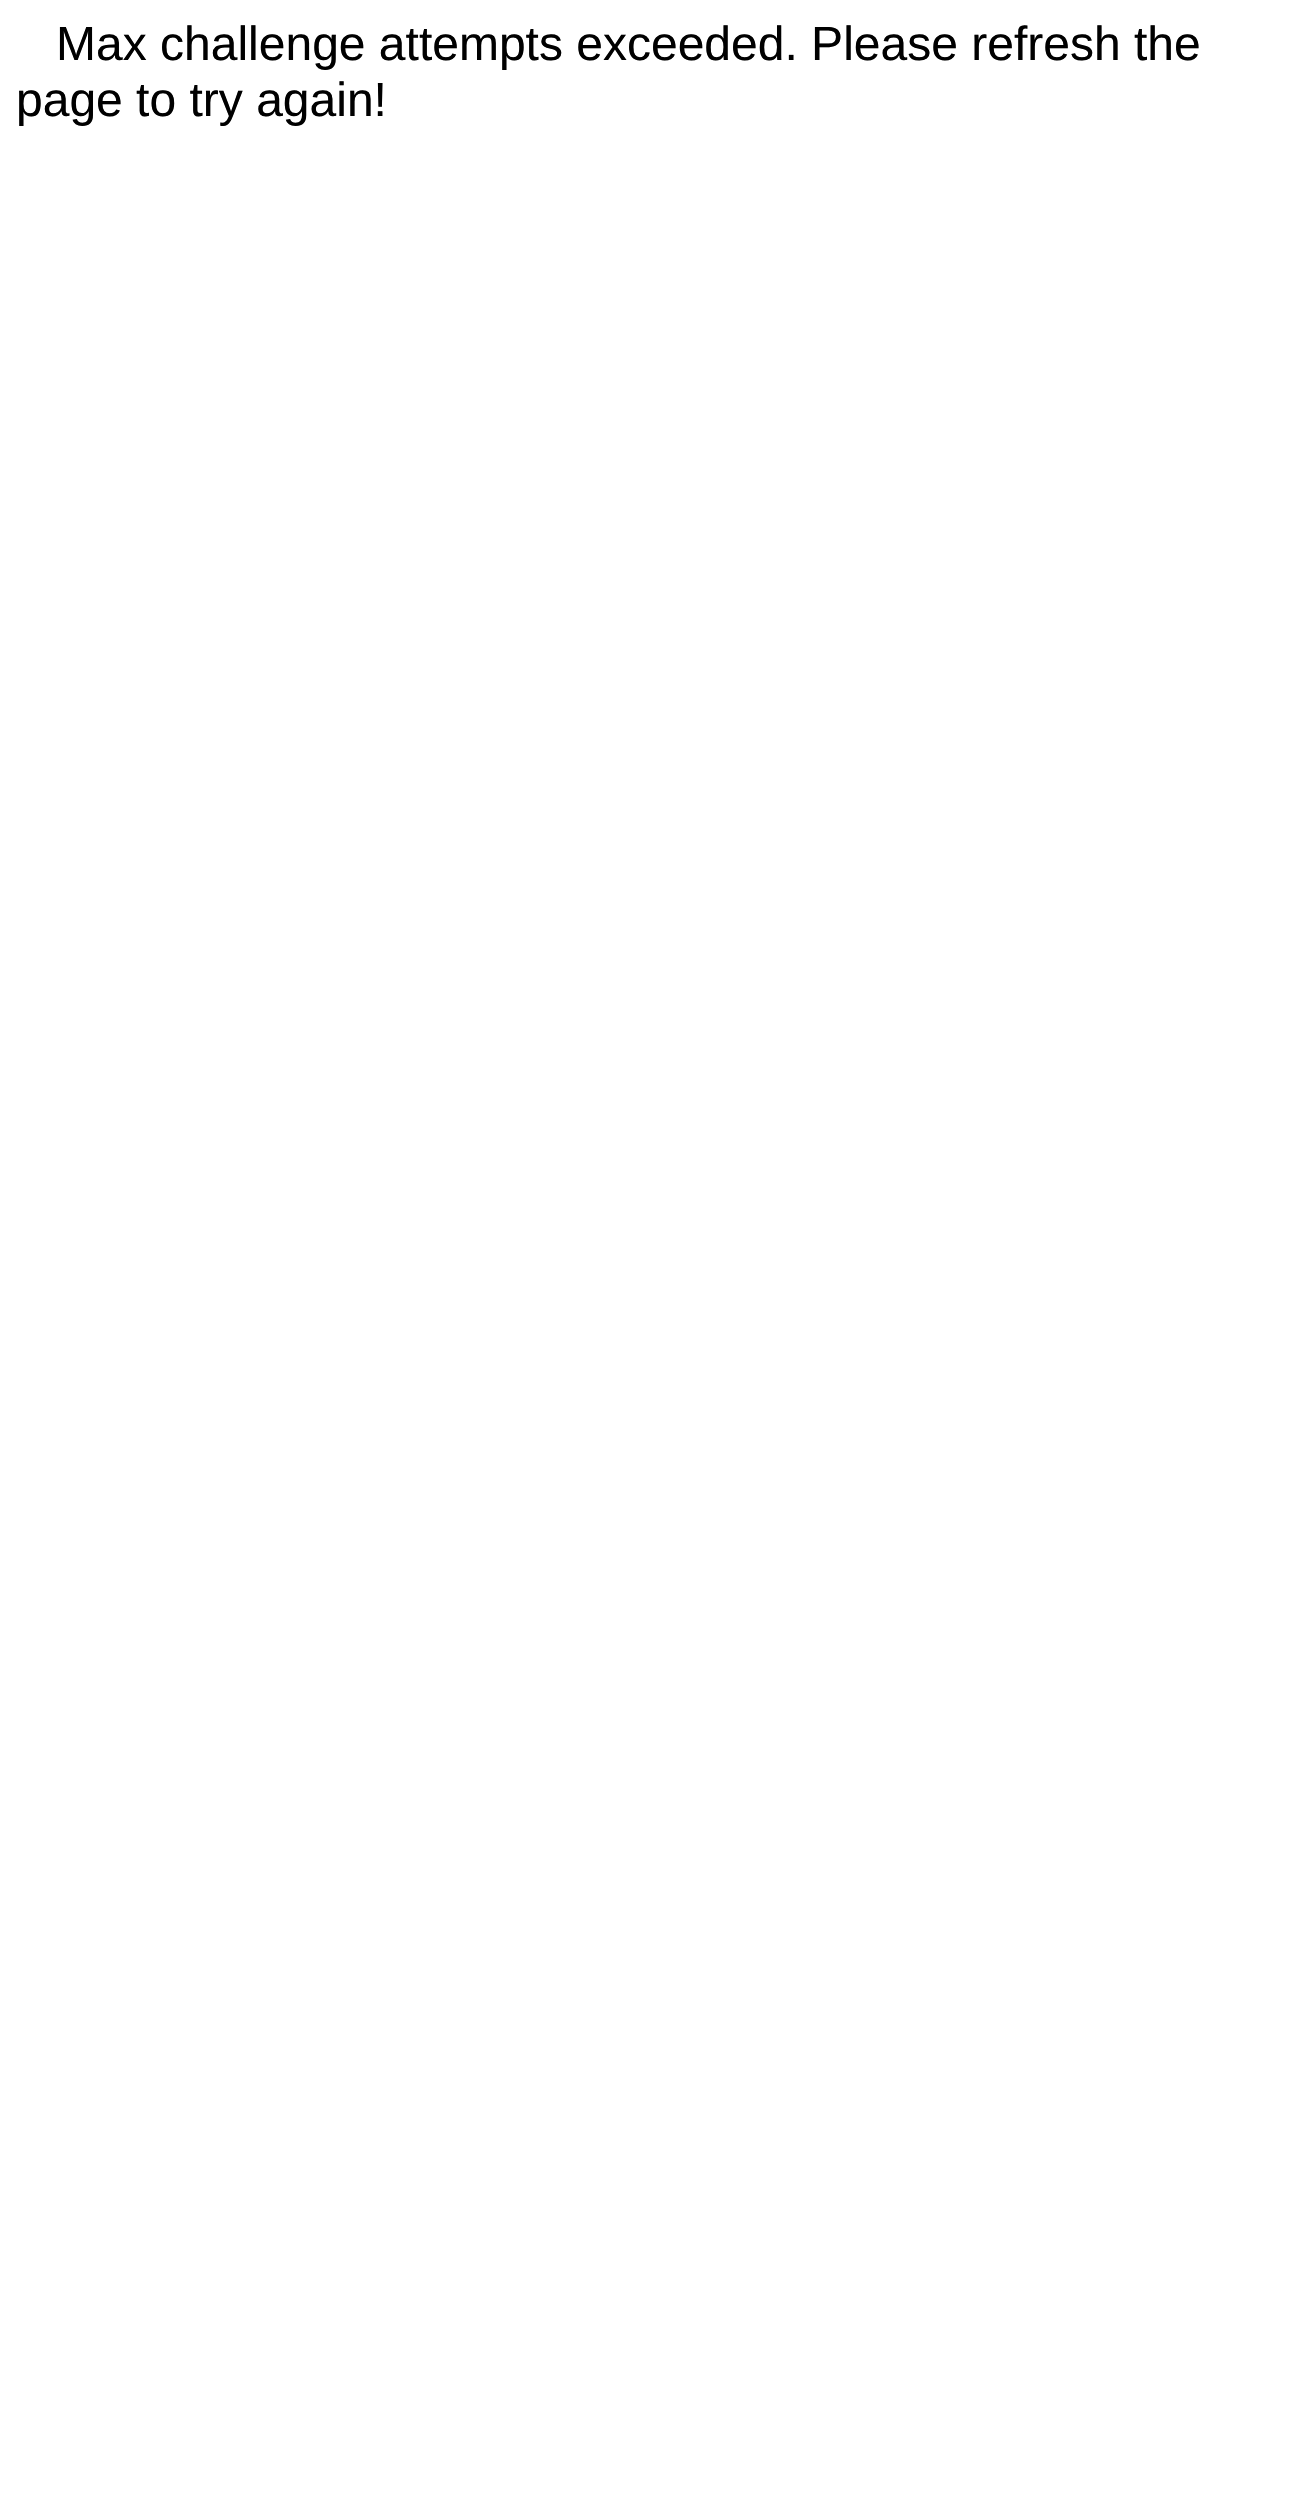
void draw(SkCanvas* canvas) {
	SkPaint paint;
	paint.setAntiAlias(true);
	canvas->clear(0xffffffff);
	SkFont f1(fontMgr->matchFamilyStyle("Liberation Sans", SkFontStyle::Normal()), 48);
	f1.setSubpixel(true);
	paint.setColor(0xff000000);
	canvas->drawString("Max challenge attempts exceeded. Please refresh the", 56, 60, f1, paint);
	canvas->drawString("page to try again!", 16, 116, f1, paint);
}
